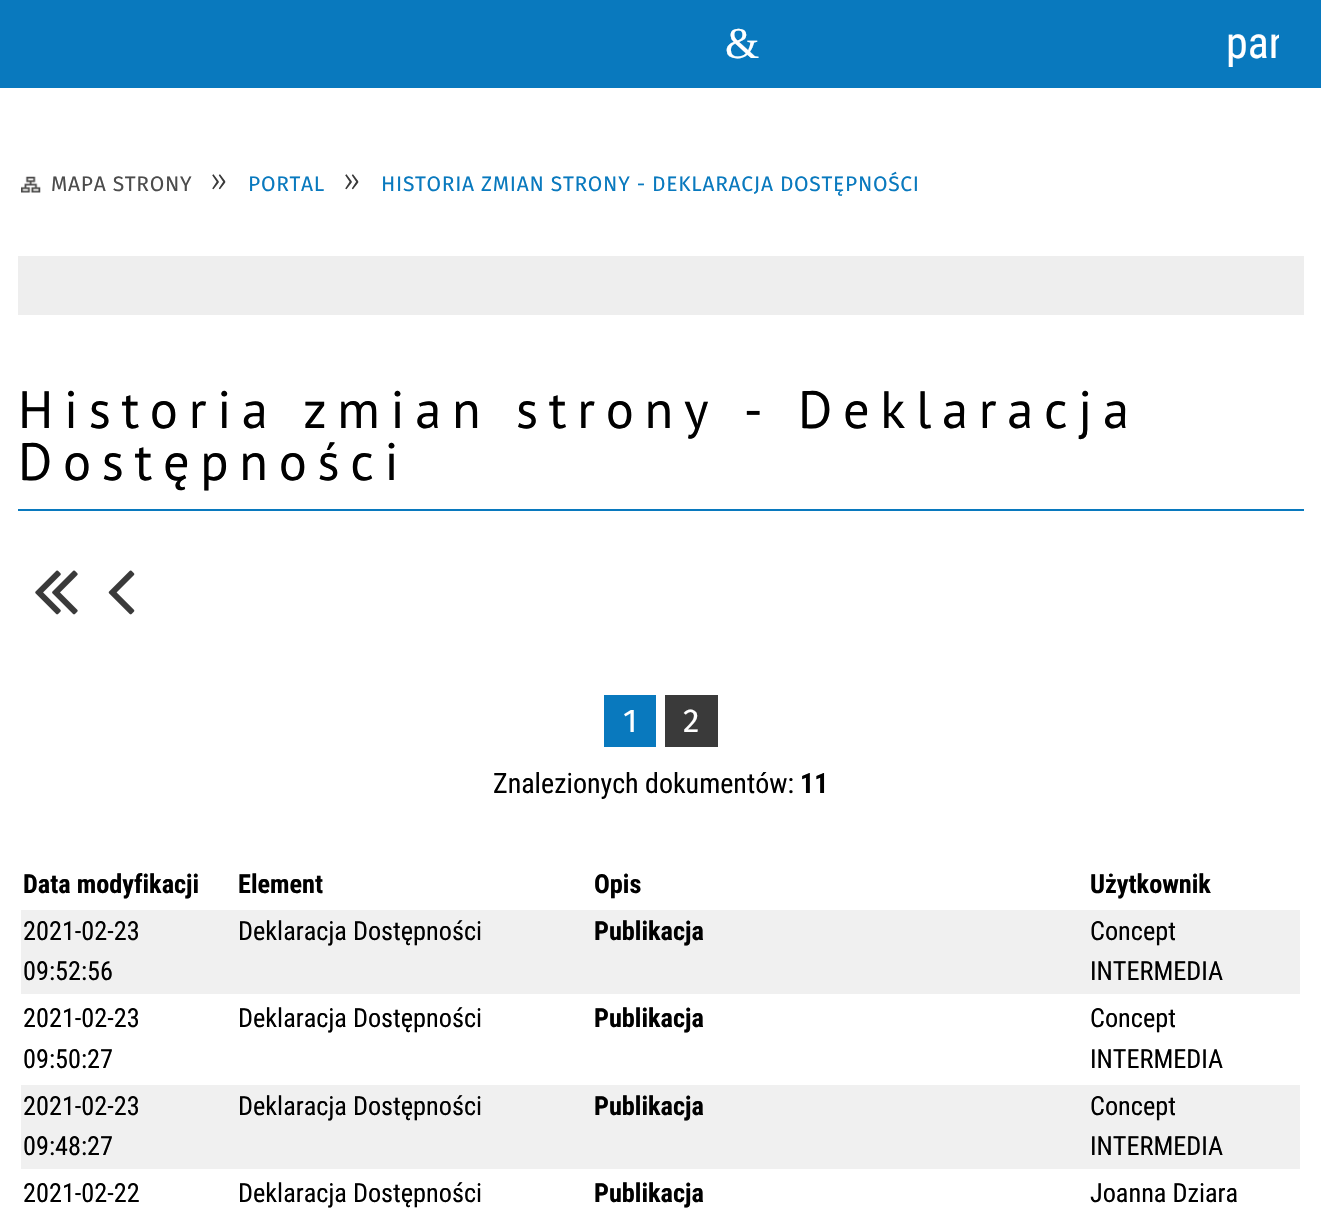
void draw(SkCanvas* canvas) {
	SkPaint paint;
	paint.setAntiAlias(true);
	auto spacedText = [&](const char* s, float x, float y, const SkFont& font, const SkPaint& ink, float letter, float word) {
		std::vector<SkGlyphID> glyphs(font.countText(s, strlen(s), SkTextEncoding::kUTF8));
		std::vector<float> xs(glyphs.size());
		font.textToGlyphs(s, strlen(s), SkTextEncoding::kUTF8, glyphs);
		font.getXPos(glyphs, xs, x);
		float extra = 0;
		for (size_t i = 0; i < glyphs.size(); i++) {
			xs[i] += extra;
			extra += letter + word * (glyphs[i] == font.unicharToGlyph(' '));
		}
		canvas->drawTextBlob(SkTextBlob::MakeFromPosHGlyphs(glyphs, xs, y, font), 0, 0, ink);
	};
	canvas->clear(0xffffffff);
	paint.setColor(0xff0979be);
	canvas->drawRect(SkRect::MakeXYWH(0, 0, 1321, 88), paint);
	SkFont f1(fontMgr->matchFamilyStyle("Liberation Serif", SkFontStyle::Normal()), 44);
	f1.setSubpixel(true);
	paint.setColor(0xffffffff);
	canvas->drawString("&", 725, 58, f1, paint);
	canvas->save();
	canvas->clipRect(SkRect::MakeXYWH(1227, 18, 52, 52));
	SkFont f2(fontMgr->matchFamilyStyle("Roboto Condensed", SkFontStyle::Normal()), 44);
	f2.setSubpixel(true);
	canvas->drawString("pan", 1226, 58, f2, paint);
	canvas->restore();
	canvas->drawImageRect(SkImages::DeferredFromEncodedData(SkData::MakeFromFileName("img1.png")), SkRect::MakeXYWH(21, 176, 20, 17), SkSamplingOptions());
	SkFont f3(fontMgr->matchFamilyStyle("Fira Sans", SkFontStyle::Normal()), 21);
	f3.setSubpixel(true);
	paint.setColor(0xff4c4c4c);
	spacedText("MAPA STRONY", 51, 191, f3, paint, 0.7, 0);
	SkFont f4(fontMgr->matchFamilyStyle("Fira Sans", SkFontStyle(300, SkFontStyle::kNormal_Width, SkFontStyle::kUpright_Slant)), 32);
	f4.setSubpixel(true);
	paint.setColor(0xff3a3a3a);
	spacedText("»", 210, 191, f4, paint, 0.7, 0);
	paint.setColor(0xff0979be);
	spacedText("PORTAL", 248, 191, f3, paint, 0.7, 0);
	paint.setColor(0xff3a3a3a);
	spacedText("»", 343, 191, f4, paint, 0.7, 0);
	paint.setColor(0xff0979be);
	spacedText("HISTORIA ZMIAN STRONY - DEKLARACJA DOSTĘPNOŚCI", 381, 191, f3, paint, 0.7, 0);
	paint.setColor(0xffeeeeee);
	canvas->drawRect(SkRect::MakeXYWH(18, 256, 1286, 59), paint);
	paint.setColor(0xff0979be);
	canvas->drawRect(SkRect::MakeXYWH(18, 509, 1286, 2), paint);
	SkFont f5(fontMgr->matchFamilyStyle("PT Sans", SkFontStyle::Normal()), 52.5);
	f5.setSubpixel(true);
	paint.setColor(0xff000000);
	spacedText("Historia zmian strony - Deklaracja", 18, 428, f5, paint, 10.65, 0);
	spacedText("Dostępności", 18, 480, f5, paint, 10.65, 0);
	canvas->drawImageRect(SkImages::DeferredFromEncodedData(SkData::MakeFromFileName("img2.png")), SkRect::MakeXYWH(35, 570, 43, 45), SkSamplingOptions());
	canvas->drawImageRect(SkImages::DeferredFromEncodedData(SkData::MakeFromFileName("img3.png")), SkRect::MakeXYWH(108, 570, 27, 45), SkSamplingOptions());
	paint.setColor(0xff0979be);
	canvas->drawRect(SkRect::MakeXYWH(604, 695, 52, 52), paint);
	SkFont f6(fontMgr->matchFamilyStyle("Fira Sans", SkFontStyle::Normal()), 33);
	f6.setSubpixel(true);
	paint.setColor(0xffffffff);
	canvas->drawString("1", 623, 732, f6, paint);
	paint.setColor(0xff3a3a3a);
	canvas->drawRect(SkRect::MakeXYWH(665, 695, 53, 52), paint);
	paint.setColor(0xffffffff);
	canvas->drawString("2", 683, 732, f6, paint);
	SkFont f7(fontMgr->matchFamilyStyle("Roboto Condensed", SkFontStyle::Normal()), 28);
	f7.setSubpixel(true);
	paint.setColor(0xff000000);
	canvas->drawString("Znalezionych dokumentów:", 493, 793, f7, paint);
	SkFont f8(fontMgr->matchFamilyStyle("Roboto Condensed", SkFontStyle::Bold()), 28);
	f8.setSubpixel(true);
	canvas->drawString("11", 800, 793, f8, paint);
	SkFont f9(fontMgr->matchFamilyStyle("Roboto Condensed", SkFontStyle::Bold()), 26.25);
	f9.setSubpixel(true);
	canvas->drawString("Data modyfikacji", 23, 893, f9, paint);
	canvas->drawString("Element", 238, 893, f9, paint);
	canvas->drawString("Opis", 594, 893, f9, paint);
	canvas->drawString("Użytkownik", 1090, 893, f9, paint);
	paint.setColor(0xfff0f0f0);
	canvas->drawRect(SkRect::MakeXYWH(21, 910, 1279, 84), paint);
	SkFont f10(fontMgr->matchFamilyStyle("Roboto Condensed", SkFontStyle::Normal()), 26.25);
	f10.setSubpixel(true);
	paint.setColor(0xff000000);
	canvas->drawString("2021-02-23", 23, 940, f10, paint);
	canvas->drawString("09:52:56", 23, 980, f10, paint);
	canvas->drawString("Deklaracja Dostępności", 238, 940, f10, paint);
	canvas->drawString("Publikacja", 594, 940, f9, paint);
	canvas->drawString("Concept", 1090, 940, f10, paint);
	canvas->drawString("INTERMEDIA", 1090, 980, f10, paint);
	canvas->drawString("2021-02-23", 23, 1027, f10, paint);
	canvas->drawString("09:50:27", 23, 1068, f10, paint);
	canvas->drawString("Deklaracja Dostępności", 238, 1027, f10, paint);
	canvas->drawString("Publikacja", 594, 1027, f9, paint);
	canvas->drawString("Concept", 1090, 1027, f10, paint);
	canvas->drawString("INTERMEDIA", 1090, 1068, f10, paint);
	paint.setColor(0xfff0f0f0);
	canvas->drawRect(SkRect::MakeXYWH(21, 1085, 1279, 84), paint);
	paint.setColor(0xff000000);
	canvas->drawString("2021-02-23", 23, 1115, f10, paint);
	canvas->drawString("09:48:27", 23, 1155, f10, paint);
	canvas->drawString("Deklaracja Dostępności", 238, 1115, f10, paint);
	canvas->drawString("Publikacja", 594, 1115, f9, paint);
	canvas->drawString("Concept", 1090, 1115, f10, paint);
	canvas->drawString("INTERMEDIA", 1090, 1155, f10, paint);
	canvas->drawString("2021-02-22", 23, 1202, f10, paint);
	canvas->drawString("Deklaracja Dostępności", 238, 1202, f10, paint);
	canvas->drawString("Publikacja", 594, 1202, f9, paint);
	canvas->drawString("Joanna Dziara", 1090, 1202, f10, paint);
}
